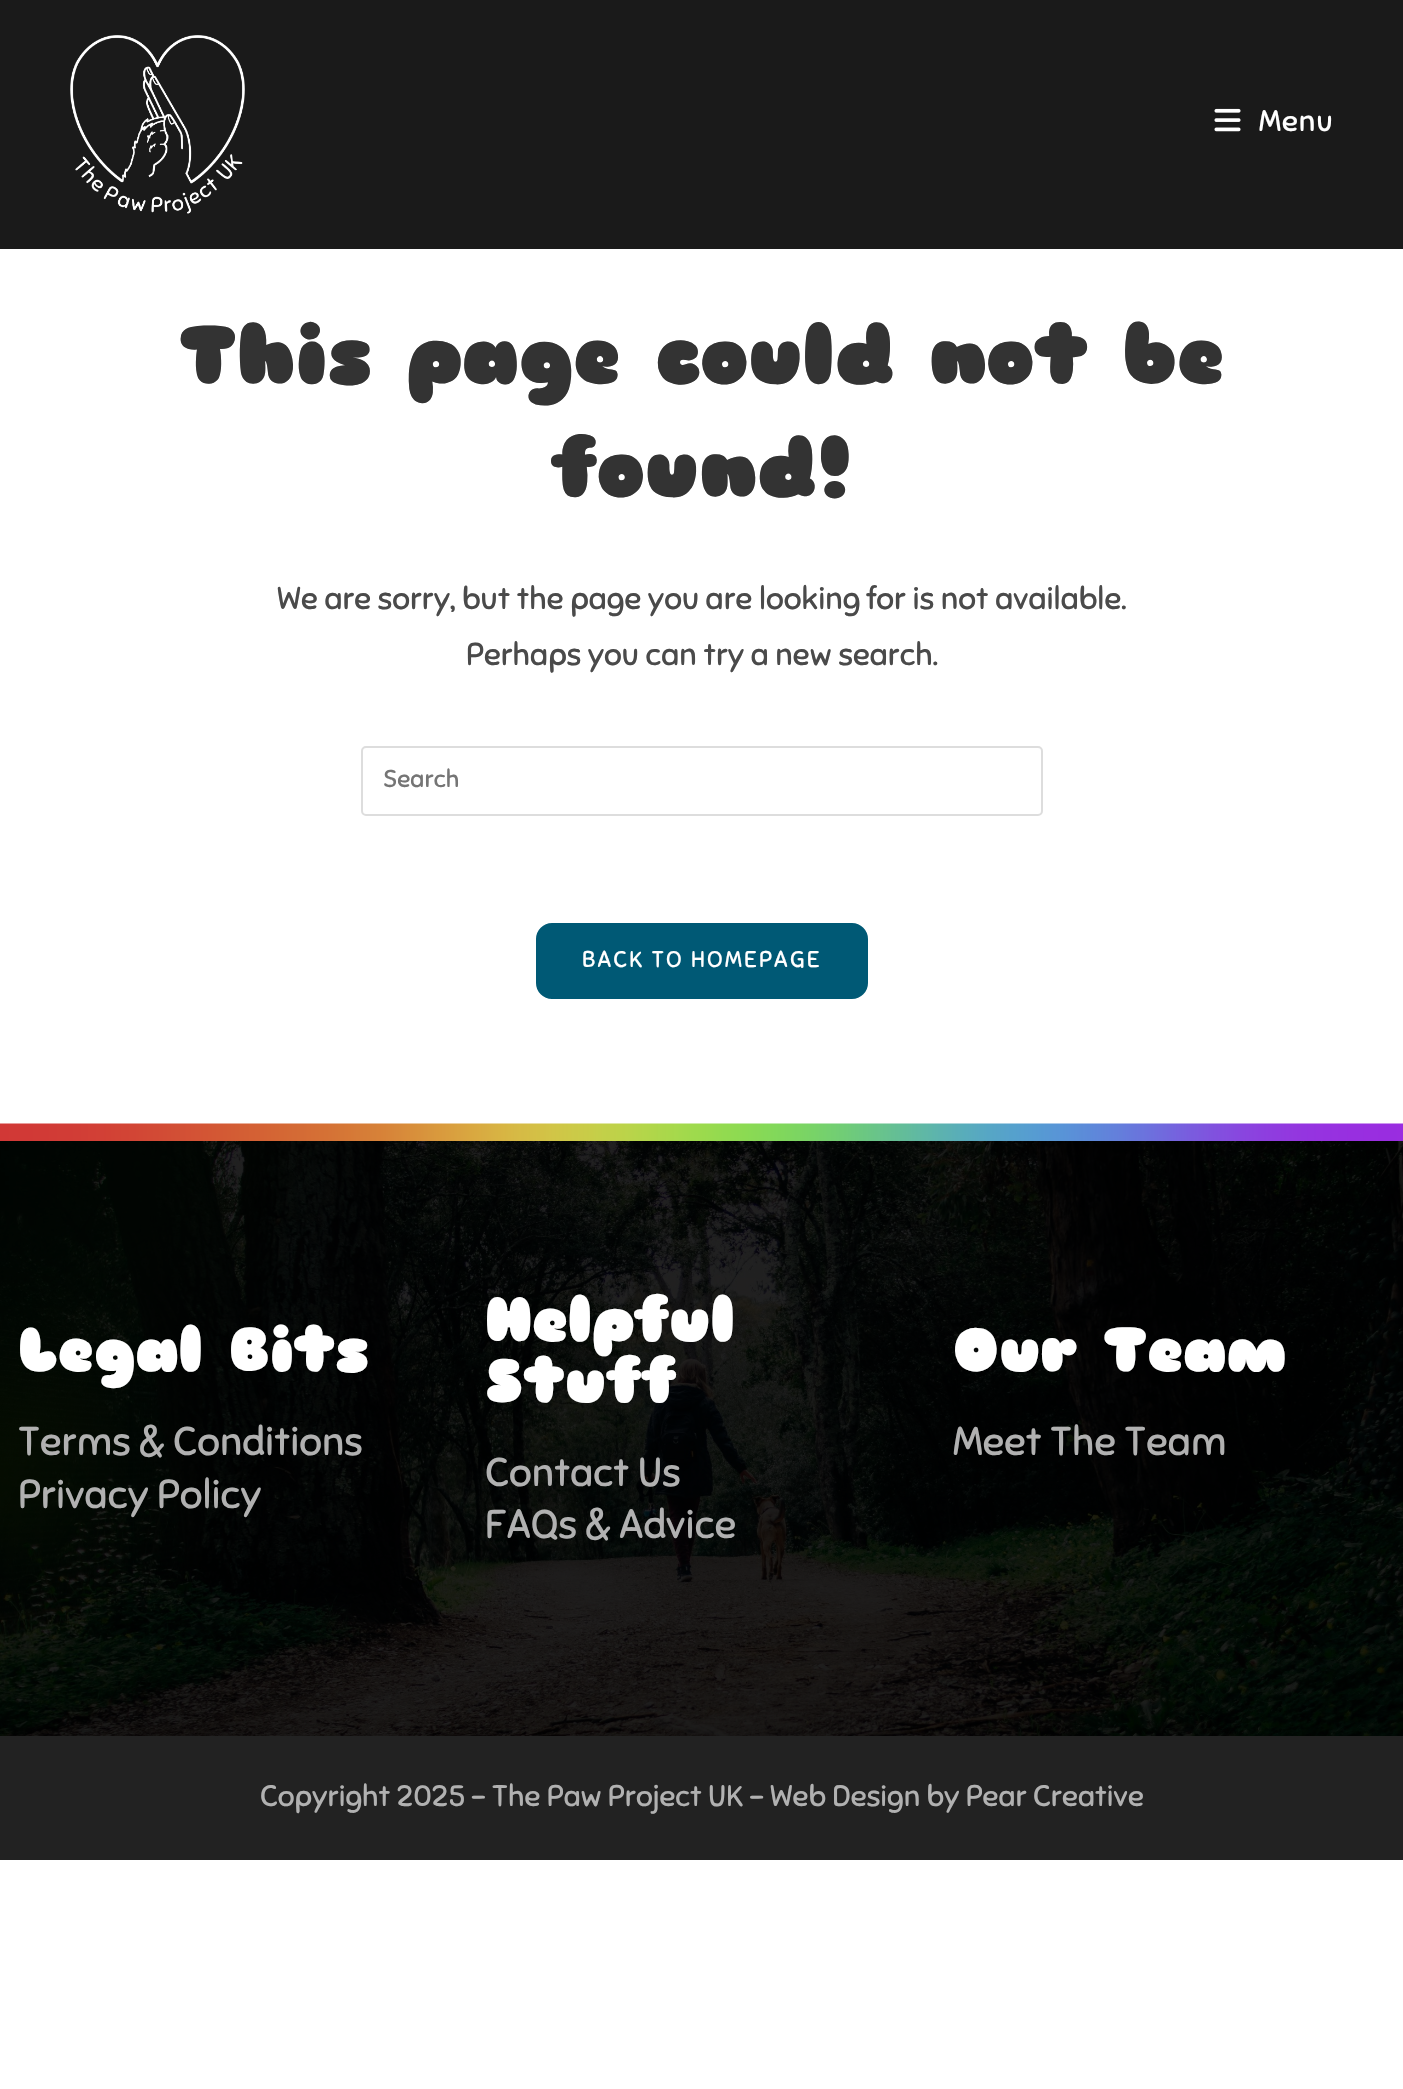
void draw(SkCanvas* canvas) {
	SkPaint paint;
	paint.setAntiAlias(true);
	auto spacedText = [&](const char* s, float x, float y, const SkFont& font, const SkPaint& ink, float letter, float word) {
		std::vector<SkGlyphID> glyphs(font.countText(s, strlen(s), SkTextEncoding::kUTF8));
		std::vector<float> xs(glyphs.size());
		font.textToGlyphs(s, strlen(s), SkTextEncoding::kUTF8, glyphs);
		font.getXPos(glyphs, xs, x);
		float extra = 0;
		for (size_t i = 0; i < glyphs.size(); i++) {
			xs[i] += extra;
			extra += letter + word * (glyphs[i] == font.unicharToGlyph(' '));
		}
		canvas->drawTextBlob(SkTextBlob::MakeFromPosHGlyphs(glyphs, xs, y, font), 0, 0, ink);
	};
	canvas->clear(0xffffffff);
	paint.setColor(0xff1a1a1a);
	canvas->drawRect(SkRect::MakeXYWH(0, 0, 1403, 249), paint);
	canvas->drawImageRect(SkImages::DeferredFromEncodedData(SkData::MakeFromFileName("img1.png")), SkRect::MakeXYWH(70, 35, 175, 179), SkSamplingOptions());
	canvas->drawImageRect(SkImages::DeferredFromEncodedData(SkData::MakeFromFileName("img2.png")), SkRect::MakeXYWH(1214, 108, 27, 24), SkSamplingOptions());
	SkFont f1(fontMgr->matchFamilyStyle("Sniglet", SkFontStyle::Normal()), 29.75);
	f1.setSubpixel(true);
	paint.setColor(0xffffffff);
	spacedText("Menu", 1259, 131, f1, paint, 1, 0);
	SkFont f2(fontMgr->matchFamilyStyle("Sniglet", SkFontStyle(800, SkFontStyle::kNormal_Width, SkFontStyle::kUpright_Slant)), 80.5);
	f2.setSubpixel(true);
	paint.setColor(0xff333333);
	canvas->drawString("This page could not be", 179, 383, f2, paint);
	canvas->drawString("found!", 551, 496, f2, paint);
	SkFont f3(fontMgr->matchFamilyStyle("Sniglet", SkFontStyle::Normal()), 31.5);
	f3.setSubpixel(true);
	paint.setColor(0xff4a4a4a);
	canvas->drawString("We are sorry, but the page you are looking for is not available.", 277, 609, f3, paint);
	canvas->drawString("Perhaps you can try a new search.", 466, 665, f3, paint);
	paint.setStroke(true);
	paint.setStrokeWidth(2);
	paint.setColor(0xffdddddd);
	canvas->drawRoundRect(SkRect::MakeXYWH(362, 747, 680, 68), 4, 4, paint);
	SkFont f4(fontMgr->matchFamilyStyle("Sniglet", SkFontStyle::Normal()), 24.5);
	f4.setSubpixel(true);
	paint.setStroke(false);
	paint.setColor(0xff757575);
	canvas->drawString("Search", 383, 787, f4, paint);
	paint.setColor(0xff005975);
	canvas->drawRoundRect(SkRect::MakeXYWH(535, 922, 334, 78), 17, 17, paint);
	paint.setStroke(true);
	paint.setColor(0xffffffff);
	canvas->drawRoundRect(SkRect::MakeXYWH(535, 922, 334, 78), 17, 17, paint);
	SkFont f5(fontMgr->matchFamilyStyle("Sniglet", SkFontStyle::Normal()), 22.75);
	f5.setSubpixel(true);
	paint.setStroke(false);
	spacedText("BACK TO HOMEPAGE", 582, 967, f5, paint, 2.25, 0);
	paint.setColor(0xff222222);
	canvas->drawRect(SkRect::MakeXYWH(0, 1736, 1403, 124), paint);
	canvas->drawImageRect(SkImages::DeferredFromEncodedData(SkData::MakeFromFileName("img3.png")), SkRect::MakeXYWH(0, 1123, 1403, 18), SkSamplingOptions());
	canvas->drawImageRect(SkImages::DeferredFromEncodedData(SkData::MakeFromFileName("img4.png")), SkRect::MakeXYWH(0, 1141, 1403, 595), SkSamplingOptions());
	SkFont f6(fontMgr->matchFamilyStyle("Sniglet", SkFontStyle(800, SkFontStyle::kNormal_Width, SkFontStyle::kUpright_Slant)), 61.25);
	f6.setSubpixel(true);
	paint.setColor(0xffffffff);
	canvas->drawString("Legal Bits", 18, 1371, f6, paint);
	SkFont f7(fontMgr->matchFamilyStyle("Sniglet", SkFontStyle::Normal()), 40.25);
	f7.setSubpixel(true);
	paint.setColor(0xffb1b1b1);
	canvas->drawString("Terms & Conditions", 18, 1455, f7, paint);
	canvas->drawString("Privacy Policy", 18, 1508, f7, paint);
	paint.setColor(0xffffffff);
	canvas->drawString("Helpful", 485, 1341, f6, paint);
	canvas->drawString("Stuff", 485, 1402, f6, paint);
	paint.setColor(0xffb1b1b1);
	canvas->drawString("Contact Us", 485, 1486, f7, paint);
	canvas->drawString("FAQs & Advice", 485, 1538, f7, paint);
	paint.setColor(0xffffffff);
	canvas->drawString("Our Team", 953, 1371, f6, paint);
	paint.setColor(0xffb1b1b1);
	canvas->drawString("Meet The Team", 953, 1455, f7, paint);
	canvas->drawString("Copyright 2025 – The Paw Project UK – Web Design by Pear Creative", 260, 1806, f1, paint);
}
